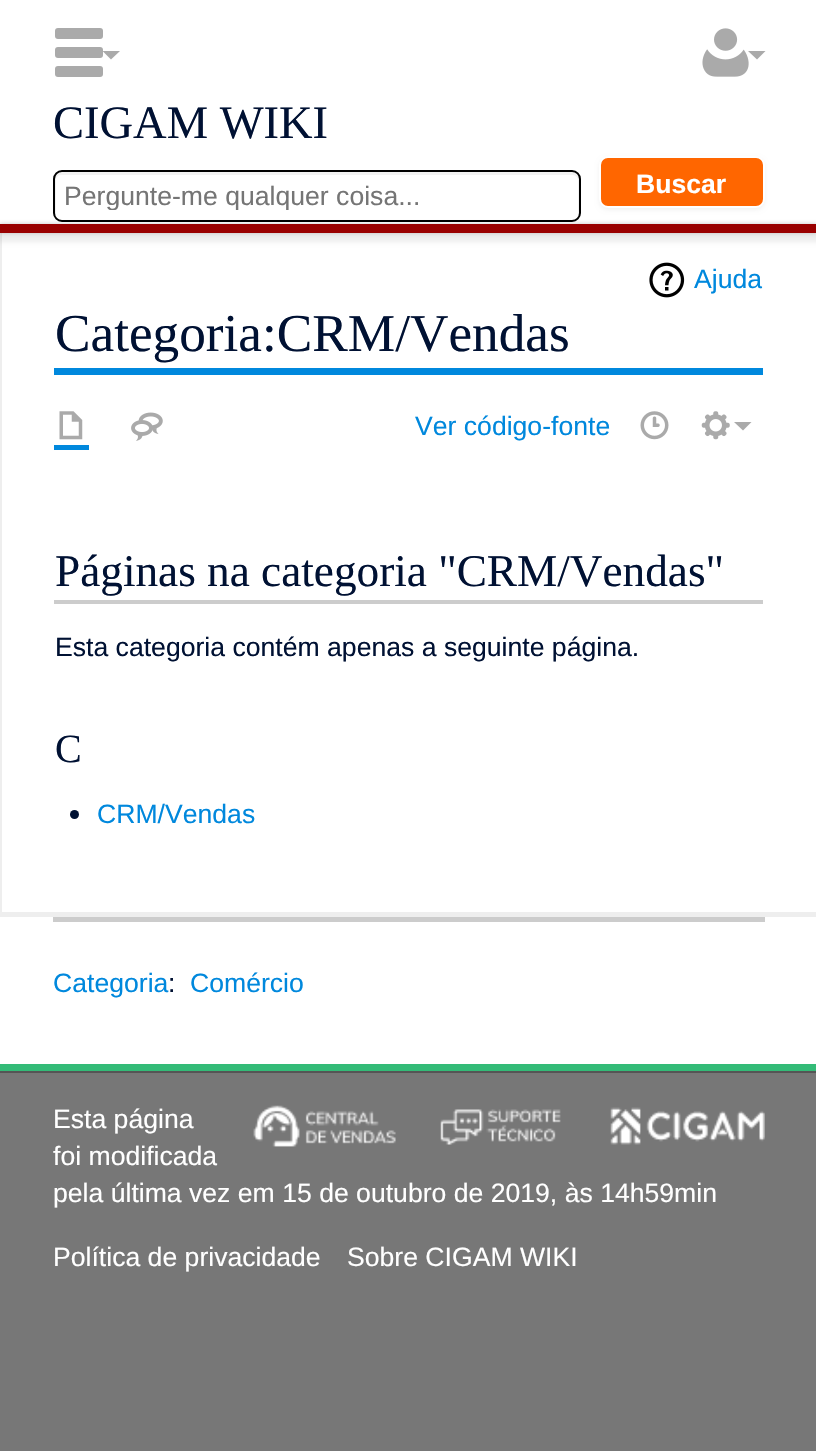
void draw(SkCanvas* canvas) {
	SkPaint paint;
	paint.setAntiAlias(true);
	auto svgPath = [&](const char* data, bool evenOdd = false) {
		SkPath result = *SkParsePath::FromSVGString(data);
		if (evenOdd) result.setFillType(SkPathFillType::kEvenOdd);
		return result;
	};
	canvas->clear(0xff777777);
	paint.setColor(0xffffffff);
	canvas->drawRect(SkRect::MakeXYWH(0, 0, 816, 224), paint);
	canvas->drawImageRect(SkImages::DeferredFromEncodedData(SkData::MakeFromFileName("img1.png")), SkRect::MakeXYWH(702, 28, 47, 49), SkSamplingOptions());
	paint.setColor(0xffaaaaaa);
	canvas->drawPath(svgPath("M765.5 51L757 59.5L748 51Z"), paint);
	SkFont f1(fontMgr->matchFamilyStyle("Liberation Serif", SkFontStyle::Normal()), 46.5);
	f1.setSubpixel(true);
	paint.setColor(0xff001133);
	canvas->drawString("CIGAM WIKI", 53, 138, f1, paint);
	paint.setColor(0xfff2f2f2);
	canvas->drawPath(svgPath("M61 172C57 172 54 175 54 179V214C54 218 57 221 61 221H572C576 221 579 218 579 214V179C579 175 576 172 572 172ZM61 175C58 175 56 177 56 180V215C56 218 58 220 61 220H572C575 220 578 218 578 215V180C578 177 575 175 572 175Z", true), paint);
	paint.setStroke(true);
	paint.setStrokeWidth(2);
	paint.setColor(0xff000000);
	canvas->drawRoundRect(SkRect::MakeXYWH(54, 171, 526, 50), 8, 8, paint);
	canvas->save();
	canvas->clipRect(SkRect::MakeXYWH(65, 180, 504, 30));
	SkFont f2(fontMgr->matchFamilyStyle("Liberation Sans", SkFontStyle::Normal()), 26.6);
	f2.setSubpixel(true);
	paint.setStroke(false);
	paint.setColor(0xff757575);
	canvas->drawString("Pergunte-me qualquer coisa...", 64, 205, f2, paint);
	canvas->restore();
	paint.setColor(0x0d000000);
	paint.setMaskFilter(SkMaskFilter::MakeBlur(kNormal_SkBlurStyle, 2));
	canvas->drawRoundRect(SkRect::MakeXYWH(599, 158, 166, 52), 9, 9, paint);
	paint.setMaskFilter(nullptr);
	paint.setColor(0xffff6600);
	canvas->drawRoundRect(SkRect::MakeXYWH(600, 157, 164, 50), 8, 8, paint);
	paint.setStroke(true);
	paint.setColor(0xffffffff);
	canvas->drawRoundRect(SkRect::MakeXYWH(600, 157, 164, 50), 8, 8, paint);
	SkFont f3(fontMgr->matchFamilyStyle("Liberation Sans", SkFontStyle::Bold()), 26.6);
	f3.setSubpixel(true);
	paint.setStroke(false);
	canvas->drawString("Buscar", 636, 193, f3, paint);
	canvas->drawRect(SkRect::MakeXYWH(0, 233, 816, 831), paint);
	paint.setColor(0xffeeeeee);
	canvas->drawRect(SkRect::MakeXYWH(0, 912, 816, 5), paint);
	canvas->drawRect(SkRect::MakeXYWH(0, 233, 2, 684), paint);
	paint.setColor(0x33000000);
	paint.setMaskFilter(SkMaskFilter::MakeBlur(kNormal_SkBlurStyle, 2));
	canvas->drawRect(SkRect::MakeXYWH(0, 224, 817, 9), paint);
	paint.setMaskFilter(nullptr);
	paint.setColor(0x12000000);
	paint.setMaskFilter(SkMaskFilter::MakeBlur(kNormal_SkBlurStyle, 2.5));
	canvas->drawRect(SkRect::MakeXYWH(-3, 226, 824, 16), paint);
	paint.setMaskFilter(nullptr);
	paint.setColor(0xff990000);
	canvas->drawRect(SkRect::MakeXYWH(0, 224, 816, 9), paint);
	paint.setColor(0xff33bb77);
	canvas->drawRect(SkRect::MakeXYWH(0, 1064, 816, 7), paint);
	paint.setColor(0xffaaaaaa);
	canvas->drawRoundRect(SkRect::MakeXYWH(55, 66, 48, 11), 3, 3, paint);
	canvas->drawRoundRect(SkRect::MakeXYWH(55, 47, 48, 11), 3, 3, paint);
	canvas->drawRoundRect(SkRect::MakeXYWH(55, 28, 48, 11), 3, 3, paint);
	canvas->drawPath(svgPath("M120 51L111 59.5L102.5 51Z"), paint);
	canvas->drawImageRect(SkImages::DeferredFromEncodedData(SkData::MakeFromFileName("img2.png")), SkRect::MakeXYWH(649, 262, 36, 36), SkSamplingOptions());
	paint.setColor(0xff0088dd);
	canvas->drawString("Ajuda", 694, 288, f2, paint);
	canvas->drawRect(SkRect::MakeXYWH(54, 368, 709, 7), paint);
	SkFont f4(fontMgr->matchFamilyStyle("Liberation Serif", SkFontStyle::Normal()), 53.25);
	f4.setSubpixel(true);
	paint.setColor(0xff001133);
	canvas->drawString("Categoria:CRM/Vendas", 55, 351, f4, paint);
	paint.setColor(0xff0088dd);
	canvas->drawRect(SkRect::MakeXYWH(54, 445, 35, 5), paint);
	canvas->drawImageRect(SkImages::DeferredFromEncodedData(SkData::MakeFromFileName("img3.png")), SkRect::MakeXYWH(59, 411, 24, 29), SkSamplingOptions());
	canvas->drawImageRect(SkImages::DeferredFromEncodedData(SkData::MakeFromFileName("img4.png")), SkRect::MakeXYWH(131, 412, 32, 29), SkSamplingOptions());
	canvas->drawString("Ver código-fonte", 415, 435, f2, paint);
	canvas->drawImageRect(SkImages::DeferredFromEncodedData(SkData::MakeFromFileName("img5.png")), SkRect::MakeXYWH(640, 411, 29, 29), SkSamplingOptions());
	canvas->drawImageRect(SkImages::DeferredFromEncodedData(SkData::MakeFromFileName("img6.png")), SkRect::MakeXYWH(701, 411, 29, 29), SkSamplingOptions());
	paint.setColor(0xffaaaaaa);
	canvas->drawPath(svgPath("M751.5 422L743 430.5L734 422Z"), paint);
	paint.setColor(0xffcccccc);
	canvas->drawRect(SkRect::MakeXYWH(54, 600, 709, 4), paint);
	SkFont f5(fontMgr->matchFamilyStyle("Liberation Serif", SkFontStyle::Normal()), 45.25);
	f5.setSubpixel(true);
	paint.setColor(0xff001133);
	canvas->drawString("Páginas na categoria \"CRM/Vendas\"", 55, 586, f5, paint);
	canvas->drawString("Esta categoria contém apenas a seguinte página.", 55, 656, f2, paint);
	SkFont f6(fontMgr->matchFamilyStyle("Liberation Serif", SkFontStyle::Normal()), 40);
	f6.setSubpixel(true);
	canvas->drawString("C", 55, 762, f6, paint);
	canvas->drawCircle(74.5, 814.5, 4.5, paint);
	paint.setColor(0xff0088dd);
	canvas->drawString("CRM/Vendas", 97, 823, f2, paint);
	paint.setColor(0xffcccccc);
	canvas->drawRect(SkRect::MakeXYWH(53, 917, 712, 5), paint);
	paint.setColor(0xff0088dd);
	canvas->drawString("Categoria", 53, 992, f2, paint);
	paint.setColor(0xff001133);
	canvas->drawString(":", 168, 992, f2, paint);
	paint.setColor(0xff0088dd);
	canvas->drawString("Comércio", 190, 992, f2, paint);
	paint.setColor(0xff555555);
	canvas->drawRect(SkRect::MakeXYWH(0, 1071, 816, 2), paint);
	canvas->drawImageRect(SkImages::DeferredFromEncodedData(SkData::MakeFromFileName("img7.png")), SkRect::MakeXYWH(253, 1105, 143, 42), SkSamplingOptions());
	canvas->drawImageRect(SkImages::DeferredFromEncodedData(SkData::MakeFromFileName("img8.png")), SkRect::MakeXYWH(610, 1107, 155, 38), SkSamplingOptions());
	paint.setColor(0xffffffff);
	canvas->drawString("Esta página", 53, 1128, f2, paint);
	canvas->drawString("foi modificada", 53, 1165, f2, paint);
	canvas->drawString("pela última vez em 15 de outubro de 2019, às 14h59min", 53, 1202, f2, paint);
	canvas->drawString("Política de privacidade", 53, 1266, f2, paint);
	canvas->drawString("Sobre CIGAM WIKI", 347, 1266, f2, paint);
	canvas->drawImageRect(SkImages::DeferredFromEncodedData(SkData::MakeFromFileName("img9.png")), SkRect::MakeXYWH(440, 1109, 121, 36), SkSamplingOptions());
}
